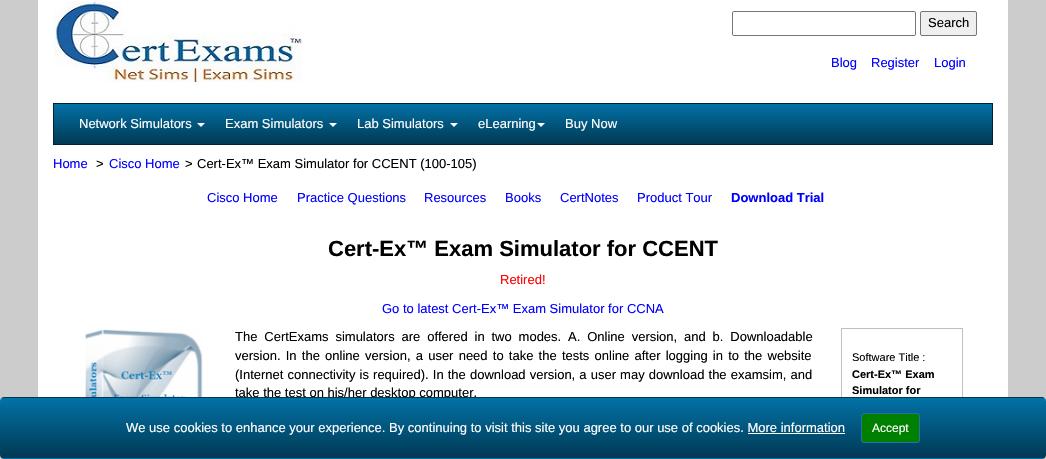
void draw(SkCanvas* canvas) {
	SkPaint paint;
	paint.setAntiAlias(true);
	auto spacedText = [&](const char* s, float x, float y, const SkFont& font, const SkPaint& ink, float letter, float word) {
		std::vector<SkGlyphID> glyphs(font.countText(s, strlen(s), SkTextEncoding::kUTF8));
		std::vector<float> xs(glyphs.size());
		font.textToGlyphs(s, strlen(s), SkTextEncoding::kUTF8, glyphs);
		font.getXPos(glyphs, xs, x);
		float extra = 0;
		for (size_t i = 0; i < glyphs.size(); i++) {
			xs[i] += extra;
			extra += letter + word * (glyphs[i] == font.unicharToGlyph(' '));
		}
		canvas->drawTextBlob(SkTextBlob::MakeFromPosHGlyphs(glyphs, xs, y, font), 0, 0, ink);
	};
	auto svgPath = [&](const char* data, bool evenOdd = false) {
		SkPath result = *SkParsePath::FromSVGString(data);
		if (evenOdd) result.setFillType(SkPathFillType::kEvenOdd);
		return result;
	};
	canvas->clear(0xffcccccc);
	paint.setColor(0xffffffff);
	canvas->drawRect(SkRect::MakeXYWH(38, 0, 970, 397), paint);
	canvas->drawImageRect(SkImages::DeferredFromEncodedData(SkData::MakeFromFileName("img1.png")), SkRect::MakeXYWH(54, 1, 248, 81), SkSamplingOptions());
	paint.setStroke(true);
	paint.setStrokeWidth(1);
	paint.setColor(0xff767676);
	canvas->drawRoundRect(SkRect::MakeXYWH(732.5, 11.5, 183, 24), 1.5, 1.5, paint);
	paint.setStroke(false);
	paint.setColor(0xffefefef);
	canvas->drawRoundRect(SkRect::MakeXYWH(920.5, 11.5, 56, 24), 1.5, 1.5, paint);
	paint.setStroke(true);
	paint.setColor(0xff767676);
	canvas->drawRoundRect(SkRect::MakeXYWH(920.5, 11.5, 56, 24), 1.5, 1.5, paint);
	SkFont f1(fontMgr->matchFamilyStyle("Liberation Sans", SkFontStyle::Normal()), 13);
	f1.setSubpixel(true);
	paint.setStroke(false);
	paint.setColor(0xff000000);
	canvas->drawString("Search", 928, 27, f1, paint);
	paint.setColor(0xff0000ff);
	canvas->drawString("Blog", 831, 67, f1, paint);
	canvas->drawString("Register", 871, 67, f1, paint);
	canvas->drawString("Login", 934, 67, f1, paint);
	{
		const SkColor colors[] = {0xff0272a7, 0xff013953};
		const float stops[] = {0, 1};
		const SkPoint ends[] = {{54, 104}, {54, 144}};
		paint.setShader(SkGradientShader::MakeLinear(ends, colors, stops, 2, SkTileMode::kClamp));
		paint.setAlpha(255);
	}
	canvas->drawRect(SkRect::MakeXYWH(54, 104, 938, 40), paint);
	paint.setStroke(true);
	paint.setShader(nullptr);
	paint.setColor(0xff002232);
	canvas->drawRect(SkRect::MakeXYWH(53.5, 103.5, 939, 41), paint);
	paint.setStroke(false);
	paint.setColor(0xffffffff);
	canvas->drawString("Network Simulators", 79, 128, f1, paint);
	canvas->drawPath(svgPath("M197 123H205L201 127Z"), paint);
	canvas->drawString("Exam Simulators", 225, 128, f1, paint);
	canvas->drawPath(svgPath("M329 123H337L333 127Z"), paint);
	canvas->drawString("Lab Simulators", 357, 128, f1, paint);
	canvas->drawPath(svgPath("M450 123H458L454 127Z"), paint);
	canvas->drawString("eLearning", 478, 128, f1, paint);
	canvas->drawPath(svgPath("M537 123H545L541 127Z"), paint);
	canvas->drawString("Buy Now", 565, 128, f1, paint);
	paint.setColor(0xff0000ff);
	canvas->drawString("Home", 53, 168, f1, paint);
	paint.setColor(0xff000000);
	canvas->drawString(">", 96, 168, f1, paint);
	paint.setColor(0xff0000ff);
	canvas->drawString("Cisco Home", 109, 168, f1, paint);
	paint.setColor(0xff000000);
	canvas->drawString(">", 185, 168, f1, paint);
	canvas->drawString("Cert-Ex™ Exam Simulator for CCENT (100-105)", 197, 168, f1, paint);
	paint.setColor(0xff0000ff);
	canvas->drawString("Cisco Home", 207, 202, f1, paint);
	canvas->drawString("Practice Questions", 297, 202, f1, paint);
	canvas->drawString("Resources", 424, 202, f1, paint);
	canvas->drawString("Books", 505, 202, f1, paint);
	canvas->drawString("CertNotes", 560, 202, f1, paint);
	canvas->drawString("Product Tour", 637, 202, f1, paint);
	SkFont f2(fontMgr->matchFamilyStyle("Liberation Sans", SkFontStyle::Bold()), 13);
	f2.setSubpixel(true);
	canvas->drawString("Download Trial", 731, 202, f2, paint);
	SkFont f3(fontMgr->matchFamilyStyle("Liberation Sans", SkFontStyle::Bold()), 22);
	f3.setSubpixel(true);
	paint.setColor(0xff000000);
	canvas->drawString("Cert-Ex™ Exam Simulator for CCENT", 328, 256, f3, paint);
	paint.setColor(0xffff0000);
	canvas->drawString("Retired!", 500, 284, f1, paint);
	paint.setColor(0xff0000ff);
	canvas->drawString("Go to latest Cert-Ex™ Exam Simulator for CCNA", 382, 313, f1, paint);
	canvas->drawImageRect(SkImages::DeferredFromEncodedData(SkData::MakeFromFileName("img2.png")), SkRect::MakeXYWH(85, 329, 118, 68), SkSamplingOptions());
	paint.setColor(0xff000000);
	spacedText("The CertExams simulators are offered in two modes. A. Online version, and b. Downloadable", 235, 341, f1, paint, 0, 3.25);
	spacedText("version. In the online version, a user need to take the tests online after logging in to the website", 235, 360, f1, paint, 0, 1.6);
	spacedText("(Internet connectivity is required). In the download version, a user may download the examsim, and", 235, 379, f1, paint, 0, 0.5);
	canvas->drawString("take the test on his/her desktop computer.", 235, 397, f1, paint);
	paint.setStroke(true);
	paint.setColor(0xffc0c0c0);
	canvas->drawRect(SkRect::MakeXYWH(841.5, 328.5, 121, 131), paint);
	SkFont f4(fontMgr->matchFamilyStyle("Liberation Sans", SkFontStyle::Normal()), 11);
	f4.setSubpixel(true);
	paint.setStroke(false);
	paint.setColor(0xff000000);
	canvas->drawString("Software Title :", 852, 361, f4, paint);
	SkFont f5(fontMgr->matchFamilyStyle("Liberation Sans", SkFontStyle::Bold()), 11);
	f5.setSubpixel(true);
	canvas->drawString("Cert-Ex™ Exam", 852, 378, f5, paint);
	canvas->drawString("Simulator for", 852, 394, f5, paint);
	canvas->save();
	canvas->clipPath(svgPath("M4 397H1042C1044 397 1046 399 1046 401V455C1046 457 1044 459 1042 459H4C2 459 0 457 0 455V401C0 399 2 397 4 397Z"), true);
	{
		const SkColor colors[] = {0xff0272a7, 0xff013953};
		const float stops[] = {0, 1};
		const SkPoint ends[] = {{1, 338}, {1, 398}};
		paint.setShader(SkGradientShader::MakeLinear(ends, colors, stops, 2, SkTileMode::kClamp));
		paint.setAlpha(255);
	}
	canvas->drawRect(SkRect::MakeXYWH(0, 397, 1046, 1), paint);
	{
		const SkColor colors[] = {0xff0272a7, 0xff013953};
		const float stops[] = {0, 1};
		const SkPoint ends[] = {{1, 398}, {1, 458}};
		paint.setShader(SkGradientShader::MakeLinear(ends, colors, stops, 2, SkTileMode::kClamp));
		paint.setAlpha(255);
	}
	canvas->drawRect(SkRect::MakeXYWH(0, 398, 1046, 60), paint);
	{
		const SkColor colors[] = {0xff0272a7, 0xff013953};
		const float stops[] = {0, 1};
		const SkPoint ends[] = {{1, 458}, {1, 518}};
		paint.setShader(SkGradientShader::MakeLinear(ends, colors, stops, 2, SkTileMode::kClamp));
		paint.setAlpha(255);
	}
	canvas->drawRect(SkRect::MakeXYWH(0, 458, 1046, 1), paint);
	canvas->restore();
	paint.setShader(nullptr);
	paint.setColor(0xffffffff);
	canvas->drawString("We use cookies to enhance your experience. By continuing to visit this site you agree to our use of cookies. More information", 126, 432, f1, paint);
	paint.setColor(0xff008000);
	canvas->drawRoundRect(SkRect::MakeXYWH(861.5, 413.5, 58, 29), 2.5, 2.5, paint);
	paint.setStroke(true);
	paint.setColor(0xff2e6da4);
	canvas->drawRoundRect(SkRect::MakeXYWH(861.5, 413.5, 58, 29), 2.5, 2.5, paint);
	SkFont f6(fontMgr->matchFamilyStyle("Liberation Sans", SkFontStyle::Normal()), 12);
	f6.setSubpixel(true);
	paint.setStroke(false);
	paint.setColor(0xffffffff);
	canvas->drawString("Accept", 872, 432, f6, paint);
	canvas->drawRect(SkRect::MakeXYWH(748, 433, 97, 1), paint);
}
